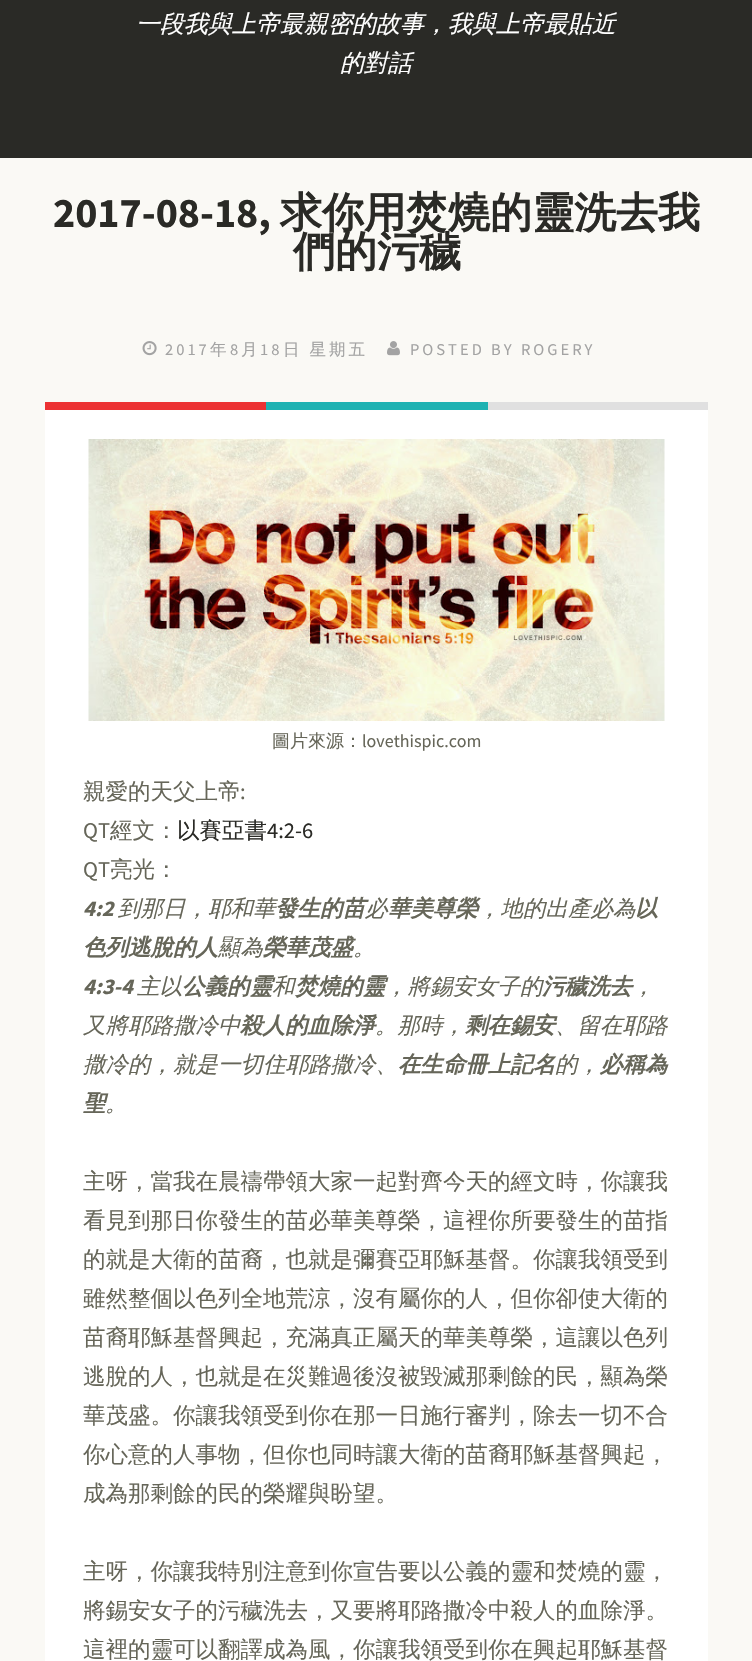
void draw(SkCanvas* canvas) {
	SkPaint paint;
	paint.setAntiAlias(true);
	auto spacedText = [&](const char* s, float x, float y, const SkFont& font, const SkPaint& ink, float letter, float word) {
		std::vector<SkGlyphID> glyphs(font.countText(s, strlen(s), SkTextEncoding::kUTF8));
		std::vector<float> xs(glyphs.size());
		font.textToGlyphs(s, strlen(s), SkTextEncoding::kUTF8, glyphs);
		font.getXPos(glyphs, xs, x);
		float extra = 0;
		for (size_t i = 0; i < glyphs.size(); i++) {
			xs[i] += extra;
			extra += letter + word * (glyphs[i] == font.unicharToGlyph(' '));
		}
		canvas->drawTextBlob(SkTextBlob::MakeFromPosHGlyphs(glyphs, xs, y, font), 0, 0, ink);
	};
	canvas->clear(0xfffaf9f5);
	paint.setColor(0xff2a2a26);
	canvas->drawRect(SkRect::MakeXYWH(0, 0, 752, 158), paint);
	SkFont f1(fontMgr->matchFamilyStyle("WenQuanYi Zen Hei", SkFontStyle(500, SkFontStyle::kNormal_Width, SkFontStyle::kItalic_Slant)), 24);
	f1.setSubpixel(true);
	paint.setColor(0xffffffff);
	canvas->drawString("一段我與上帝最親密的故事，我與上帝最貼近", 136, 32, f1, paint);
	canvas->drawString("的對話", 340, 71, f1, paint);
	SkFont f2(fontMgr->matchFamilyStyle("Source Sans Pro", SkFontStyle::Bold()), 42);
	f2.setSubpixel(true);
	paint.setColor(0xff2a2a26);
	canvas->drawString("2017-08-18,", 53, 227, f2, paint);
	SkFont f3(fontMgr->matchFamilyStyle("WenQuanYi Zen Hei", SkFontStyle::Bold()), 42);
	f3.setSubpixel(true);
	canvas->drawString("求你用焚燒的靈洗去我", 280, 227, f3, paint);
	canvas->drawString("們的污穢", 293, 266, f3, paint);
	canvas->drawImageRect(SkImages::DeferredFromEncodedData(SkData::MakeFromFileName("img1.png")), SkRect::MakeXYWH(142, 341, 15, 15), SkSamplingOptions());
	SkFont f4(fontMgr->matchFamilyStyle("Source Sans Pro", SkFontStyle::Normal()), 16.5);
	f4.setSubpixel(true);
	paint.setColor(0xffa3a3a3);
	spacedText("2017", 165, 355, f4, paint, 3, 0);
	SkFont f5(fontMgr->matchFamilyStyle("WenQuanYi Zen Hei", SkFontStyle(500, SkFontStyle::kNormal_Width, SkFontStyle::kUpright_Slant)), 16.5);
	f5.setSubpixel(true);
	spacedText("年", 210, 355, f5, paint, 3, 0);
	spacedText("8", 230, 355, f4, paint, 3, 0);
	spacedText("月", 241, 355, f5, paint, 3, 0);
	spacedText("18", 260, 355, f4, paint, 3, 0);
	spacedText("日 星期五", 283, 355, f5, paint, 3, -1);
	canvas->drawImageRect(SkImages::DeferredFromEncodedData(SkData::MakeFromFileName("img2.png")), SkRect::MakeXYWH(387, 341, 13, 15), SkSamplingOptions());
	spacedText("POSTED BY ROGERY", 410, 355, f4, paint, 3, 0);
	paint.setColor(0xffffffff);
	canvas->drawRect(SkRect::MakeXYWH(45, 410, 663, 1251), paint);
	paint.setColor(0xffec3233);
	canvas->drawRect(SkRect::MakeXYWH(45, 402, 221, 8), paint);
	paint.setColor(0xff1eb2b2);
	canvas->drawRect(SkRect::MakeXYWH(266, 402, 222, 8), paint);
	paint.setColor(0xffe0e0e0);
	canvas->drawRect(SkRect::MakeXYWH(488, 402, 220, 8), paint);
	canvas->drawImageRect(SkImages::DeferredFromEncodedData(SkData::MakeFromFileName("img3.png")), SkRect::MakeXYWH(88, 439, 577, 282), SkSamplingOptions());
	SkFont f6(fontMgr->matchFamilyStyle("WenQuanYi Zen Hei", SkFontStyle(500, SkFontStyle::kNormal_Width, SkFontStyle::kUpright_Slant)), 18);
	f6.setSubpixel(true);
	paint.setColor(0xff666659);
	canvas->drawString("圖片來源：", 272, 747, f6, paint);
	SkFont f7(fontMgr->matchFamilyStyle("Source Sans Pro", SkFontStyle::Normal()), 18);
	f7.setSubpixel(true);
	canvas->drawString("lovethispic.com", 362, 747, f7, paint);
	SkFont f8(fontMgr->matchFamilyStyle("WenQuanYi Zen Hei", SkFontStyle(500, SkFontStyle::kNormal_Width, SkFontStyle::kUpright_Slant)), 22.5);
	f8.setSubpixel(true);
	canvas->drawString("親愛的天父上帝", 83, 799, f8, paint);
	SkFont f9(fontMgr->matchFamilyStyle("Source Sans Pro", SkFontStyle::Normal()), 22.5);
	f9.setSubpixel(true);
	canvas->drawString(":", 240, 799, f9, paint);
	canvas->drawString("QT", 83, 838, f9, paint);
	canvas->drawString("經文：", 110, 838, f8, paint);
	paint.setColor(0xff2a2a26);
	canvas->drawString("以賽亞書", 177, 838, f8, paint);
	canvas->drawString("4:2-6", 267, 838, f9, paint);
	paint.setColor(0xff666659);
	canvas->drawString("QT", 83, 877, f9, paint);
	canvas->drawString("亮光：", 110, 877, f8, paint);
	SkFont f10(fontMgr->matchFamilyStyle("Source Sans Pro", SkFontStyle::BoldItalic()), 22.5);
	f10.setSubpixel(true);
	canvas->drawString("4:2", 83, 916, f10, paint);
	SkFont f11(fontMgr->matchFamilyStyle("WenQuanYi Zen Hei", SkFontStyle(500, SkFontStyle::kNormal_Width, SkFontStyle::kItalic_Slant)), 22.5);
	f11.setSubpixel(true);
	canvas->drawString("到那日，耶和華", 118, 916, f11, paint);
	SkFont f12(fontMgr->matchFamilyStyle("WenQuanYi Zen Hei", SkFontStyle::BoldItalic()), 22.5);
	f12.setSubpixel(true);
	canvas->drawString("發生的苗", 275, 916, f12, paint);
	canvas->drawString("必", 365, 916, f11, paint);
	canvas->drawString("華美尊榮", 388, 916, f12, paint);
	canvas->drawString("，地的出產必為", 478, 916, f11, paint);
	canvas->drawString("以", 635, 916, f12, paint);
	canvas->drawString("色列逃脫的人", 83, 955, f12, paint);
	canvas->drawString("顯為", 218, 955, f11, paint);
	canvas->drawString("榮華茂盛", 263, 955, f12, paint);
	canvas->drawString("。", 353, 955, f11, paint);
	canvas->drawString("4:3-4", 83, 994, f10, paint);
	canvas->drawString("主以", 137, 994, f11, paint);
	canvas->drawString("公義的靈", 182, 994, f12, paint);
	canvas->drawString("和", 272, 994, f11, paint);
	canvas->drawString("焚燒的靈", 295, 994, f12, paint);
	canvas->drawString("，將錫安女子的", 385, 994, f11, paint);
	canvas->drawString("污穢洗去", 542, 994, f12, paint);
	canvas->drawString("，", 632, 994, f11, paint);
	canvas->drawString("又將耶路撒冷中", 83, 1033, f11, paint);
	canvas->drawString("殺人的血除淨", 240, 1033, f12, paint);
	canvas->drawString("。那時，", 375, 1033, f11, paint);
	canvas->drawString("剩在錫安", 465, 1033, f12, paint);
	canvas->drawString("、留在耶路", 555, 1033, f11, paint);
	canvas->drawString("撒冷的，就是一切住耶路撒冷、", 83, 1072, f11, paint);
	canvas->drawString("在生命冊上記名", 398, 1072, f12, paint);
	canvas->drawString("的，", 555, 1072, f11, paint);
	canvas->drawString("必稱為", 600, 1072, f12, paint);
	canvas->drawString("聖", 83, 1111, f12, paint);
	canvas->drawString("。", 105, 1111, f11, paint);
	canvas->drawString("主呀，當我在晨禱帶領大家一起對齊今天的經文時，你讓我", 83, 1189, f8, paint);
	canvas->drawString("看見到那日你發生的苗必華美尊榮，這裡你所要發生的苗指", 83, 1228, f8, paint);
	canvas->drawString("的就是大衛的苗裔，也就是彌賽亞耶穌基督。你讓我領受到", 83, 1267, f8, paint);
	canvas->drawString("雖然整個以色列全地荒涼，沒有屬你的人，但你卻使大衛的", 83, 1306, f8, paint);
	canvas->drawString("苗裔耶穌基督興起，充滿真正屬天的華美尊榮，這讓以色列", 83, 1345, f8, paint);
	canvas->drawString("逃脫的人，也就是在災難過後沒被毀滅那剩餘的民，顯為榮", 83, 1384, f8, paint);
	canvas->drawString("華茂盛。你讓我領受到你在那一日施行審判，除去一切不合", 83, 1423, f8, paint);
	canvas->drawString("你心意的人事物，但你也同時讓大衛的苗裔耶穌基督興起，", 83, 1462, f8, paint);
	canvas->drawString("成為那剩餘的民的榮耀與盼望。", 83, 1501, f8, paint);
	canvas->drawString("主呀，你讓我特別注意到你宣告要以公義的靈和焚燒的靈，", 83, 1579, f8, paint);
	canvas->drawString("將錫安女子的污穢洗去，又要將耶路撒冷中殺人的血除淨。", 83, 1618, f8, paint);
	canvas->drawString("這裡的靈可以翻譯成為風，你讓我領受到你在興起耶穌基督", 83, 1657, f8, paint);
}
